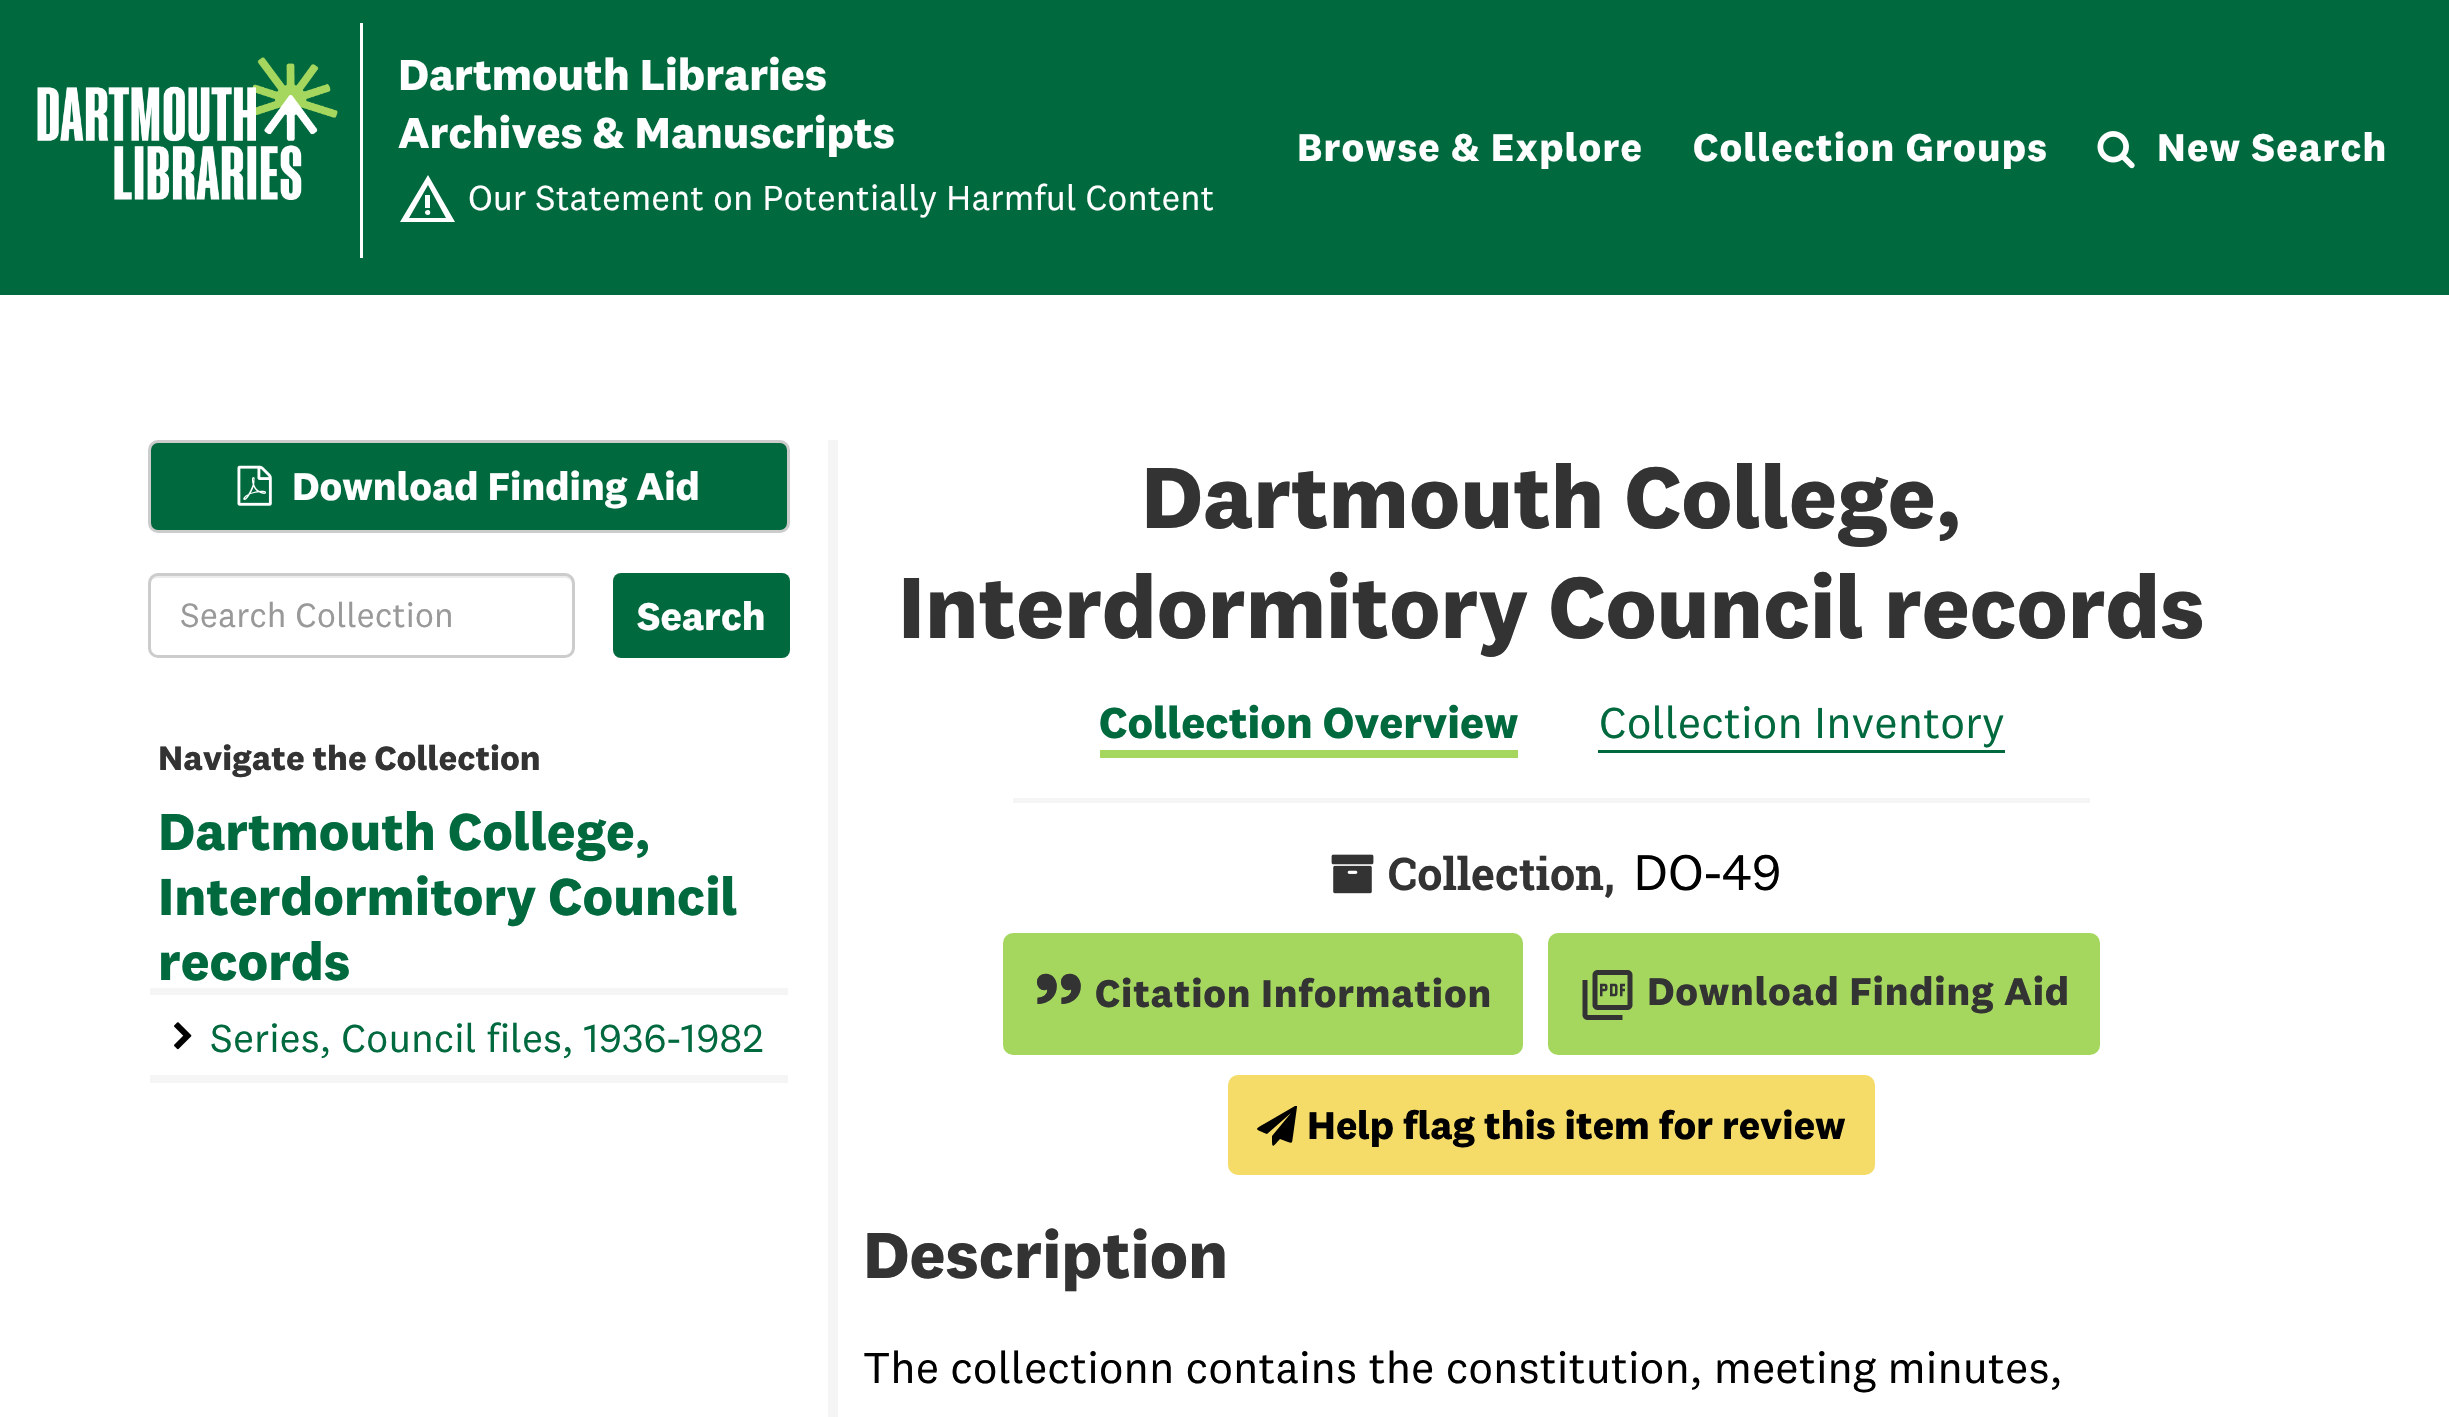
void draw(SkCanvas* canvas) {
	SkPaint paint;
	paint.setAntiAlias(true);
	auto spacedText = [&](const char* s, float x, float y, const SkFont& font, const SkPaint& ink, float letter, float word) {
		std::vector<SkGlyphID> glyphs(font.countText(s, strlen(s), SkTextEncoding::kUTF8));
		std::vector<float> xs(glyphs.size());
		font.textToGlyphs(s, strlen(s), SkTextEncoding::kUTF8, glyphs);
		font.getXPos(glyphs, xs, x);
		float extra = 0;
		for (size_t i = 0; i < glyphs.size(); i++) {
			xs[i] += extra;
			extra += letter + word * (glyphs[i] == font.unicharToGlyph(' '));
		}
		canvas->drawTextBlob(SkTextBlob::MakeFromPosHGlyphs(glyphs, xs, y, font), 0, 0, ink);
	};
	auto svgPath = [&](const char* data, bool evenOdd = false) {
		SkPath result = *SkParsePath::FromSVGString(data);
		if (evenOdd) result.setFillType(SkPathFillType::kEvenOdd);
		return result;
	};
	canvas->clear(0xffffffff);
	paint.setColor(0xff00693e);
	canvas->drawRect(SkRect::MakeXYWH(0, 0, 2449, 295), paint);
	canvas->drawImageRect(SkImages::DeferredFromEncodedData(SkData::MakeFromFileName("img1.png")), SkRect::MakeXYWH(37, 57, 301, 143), SkSamplingOptions());
	paint.setColor(0xffffffff);
	canvas->drawRect(SkRect::MakeXYWH(360, 23, 3, 235), paint);
	SkFont f1(fontMgr->matchFamilyStyle("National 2", SkFontStyle::Bold()), 45);
	f1.setSubpixel(true);
	canvas->drawString("Dartmouth Libraries", 398, 90, f1, paint);
	canvas->drawString("Archives & Manuscripts", 398, 148, f1, paint);
	canvas->drawPath(svgPath("M400 222L428 175L455 222ZM409 218H446L428 185ZM428 215C431 215 431 210 428 210C424 210 424 215 428 215ZM425 208H430V195H425ZM428 201Z"), paint);
	SkFont f2(fontMgr->matchFamilyStyle("National 2", SkFontStyle::Normal()), 36);
	f2.setSubpixel(true);
	canvas->drawString("Our Statement on Potentially Harmful Content", 468, 210, f2, paint);
	SkFont f3(fontMgr->matchFamilyStyle("National 2", SkFontStyle::Bold()), 40);
	f3.setSubpixel(true);
	spacedText("Browse & Explore", 1297, 161, f3, paint, 1.25, 0);
	spacedText("Collection Groups", 1693, 161, f3, paint, 1.25, 0);
	canvas->drawImageRect(SkImages::DeferredFromEncodedData(SkData::MakeFromFileName("img2.png")), SkRect::MakeXYWH(2097, 131, 38, 38), SkSamplingOptions());
	spacedText("New Search", 2157, 161, f3, paint, 1.25, 0);
	paint.setColor(0xff00693e);
	canvas->drawRoundRect(SkRect::MakeXYWH(149.5, 441.5, 639, 90), 8.5, 8.5, paint);
	paint.setStroke(true);
	paint.setStrokeWidth(3);
	paint.setColor(0xffcccccc);
	canvas->drawRoundRect(SkRect::MakeXYWH(149.5, 441.5, 639, 90), 8.5, 8.5, paint);
	canvas->drawImageRect(SkImages::DeferredFromEncodedData(SkData::MakeFromFileName("img3.png")), SkRect::MakeXYWH(237, 465, 35, 41), SkSamplingOptions());
	paint.setStroke(false);
	paint.setColor(0xffffffff);
	canvas->drawString("Download Finding Aid", 292, 500, f3, paint);
	paint.setColor(0xffececec);
	canvas->drawPath(svgPath("M158 578H565C569 578 572 581 572 585V651C573 650 573 648 573 647V583C573 579 569 575 565 575H158C154 575 150 579 150 583V585C150 581 153 578 158 578Z"), paint);
	paint.setStroke(true);
	paint.setColor(0xffcccccc);
	canvas->drawRoundRect(SkRect::MakeXYWH(149.5, 574.5, 424, 82), 8.5, 8.5, paint);
	SkFont f4(fontMgr->matchFamilyStyle("National 2", SkFontStyle::Normal()), 35);
	f4.setSubpixel(true);
	paint.setStroke(false);
	paint.setColor(0xff999999);
	canvas->drawString("Search Collection", 180, 627, f4, paint);
	paint.setColor(0xff00693e);
	canvas->drawRoundRect(SkRect::MakeXYWH(613, 573, 177, 85), 8, 8, paint);
	paint.setColor(0xffffffff);
	canvas->drawString("Search", 637, 630, f3, paint);
	SkFont f5(fontMgr->matchFamilyStyle("National 2", SkFontStyle::Bold()), 35);
	f5.setSubpixel(true);
	paint.setColor(0xff333333);
	canvas->drawString("Navigate the Collection", 158, 770, f5, paint);
	paint.setColor(0xfff5f5f5);
	canvas->drawRect(SkRect::MakeXYWH(150, 988, 638, 7), paint);
	SkFont f6(fontMgr->matchFamilyStyle("National 2", SkFontStyle::Bold()), 54);
	f6.setSubpixel(true);
	paint.setColor(0xff00693e);
	canvas->drawString("Dartmouth College,", 158, 850, f6, paint);
	canvas->drawString("Interdormitory Council", 158, 915, f6, paint);
	canvas->drawString("records", 158, 980, f6, paint);
	canvas->drawImageRect(SkImages::DeferredFromEncodedData(SkData::MakeFromFileName("img4.png")), SkRect::MakeXYWH(174, 1022, 18, 28), SkSamplingOptions());
	SkFont f7(fontMgr->matchFamilyStyle("National 2", SkFontStyle::Normal()), 40.5);
	f7.setSubpixel(true);
	canvas->drawString("Series, Council files, 1936-1982", 210, 1052, f7, paint);
	paint.setColor(0xfff5f5f5);
	canvas->drawRect(SkRect::MakeXYWH(150, 1075, 638, 8), paint);
	canvas->drawRect(SkRect::MakeXYWH(828, 440, 10, 977), paint);
	SkFont f8(fontMgr->matchFamilyStyle("National 2", SkFontStyle::Bold()), 90);
	f8.setSubpixel(true);
	paint.setColor(0xff333333);
	canvas->drawString("Dartmouth College,", 1141, 528, f8, paint);
	canvas->drawString("Interdormitory Council records", 898, 638, f8, paint);
	paint.setColor(0xfff5f5f5);
	canvas->drawRect(SkRect::MakeXYWH(1013, 798, 1077, 5), paint);
	paint.setColor(0xff00693e);
	canvas->drawString("Collection Overview", 1099, 738, f1, paint);
	paint.setColor(0xffa5d75f);
	canvas->drawRect(SkRect::MakeXYWH(1100, 750, 418, 8), paint);
	SkFont f9(fontMgr->matchFamilyStyle("National 2", SkFontStyle::Normal()), 45);
	f9.setSubpixel(true);
	paint.setColor(0xff00693e);
	canvas->drawString("Collection Inventory", 1599, 738, f9, paint);
	canvas->drawRect(SkRect::MakeXYWH(1598, 750, 407, 3), paint);
	canvas->drawImageRect(SkImages::DeferredFromEncodedData(SkData::MakeFromFileName("img5.png")), SkRect::MakeXYWH(1331, 854, 43, 40), SkSamplingOptions());
	SkFont f10(fontMgr->matchFamilyStyle("Roboto Slab", SkFontStyle::Bold()), 45);
	f10.setSubpixel(true);
	paint.setColor(0xff333333);
	canvas->drawString("Collection,", 1388, 890, f10, paint);
	SkFont f11(fontMgr->matchFamilyStyle("National 2", SkFontStyle::Normal()), 52);
	f11.setSubpixel(true);
	paint.setColor(0xff000000);
	canvas->drawString("DO-49", 1633, 890, f11, paint);
	paint.setColor(0xffa5d75f);
	canvas->drawRoundRect(SkRect::MakeXYWH(1003, 933, 520, 122), 10, 10, paint);
	SkFont f12(fontMgr->matchFamilyStyle("National 2", SkFontStyle::Bold()), 100);
	f12.setSubpixel(true);
	paint.setColor(0xff333333);
	spacedText("”", 1033, 1047, f12, paint, 0.75, 0);
	spacedText("Citation Information", 1095, 1007, f3, paint, 0.75, 0);
	paint.setColor(0xffa5d75f);
	canvas->drawRoundRect(SkRect::MakeXYWH(1548, 933, 552, 122), 10, 10, paint);
	canvas->drawImageRect(SkImages::DeferredFromEncodedData(SkData::MakeFromFileName("img6.png")), SkRect::MakeXYWH(1582, 970, 51, 50), SkSamplingOptions());
	paint.setColor(0xff333333);
	spacedText("Download Finding Aid", 1647, 1005, f3, paint, 0.75, 0);
	paint.setColor(0xfff5dc69);
	canvas->drawRoundRect(SkRect::MakeXYWH(1228, 1075, 647, 100), 10, 10, paint);
	paint.setColor(0xff000000);
	canvas->drawPath(svgPath("M1297 1106V1107L1293 1136C1292 1142 1293 1144 1288 1142L1280 1139C1272 1148 1272 1149 1272 1136L1291 1113L1267 1134C1256 1129 1253 1130 1264 1124L1295 1106Z"), paint);
	canvas->drawString("Help flag this item for review", 1307, 1139, f3, paint);
	SkFont f13(fontMgr->matchFamilyStyle("National 2", SkFontStyle::Bold()), 67.5);
	f13.setSubpixel(true);
	paint.setColor(0xff333333);
	canvas->drawString("Description", 863, 1278, f13, paint);
	paint.setColor(0xff000000);
	canvas->drawString("The collectionn contains the constitution, meeting minutes,", 863, 1383, f9, paint);
}
